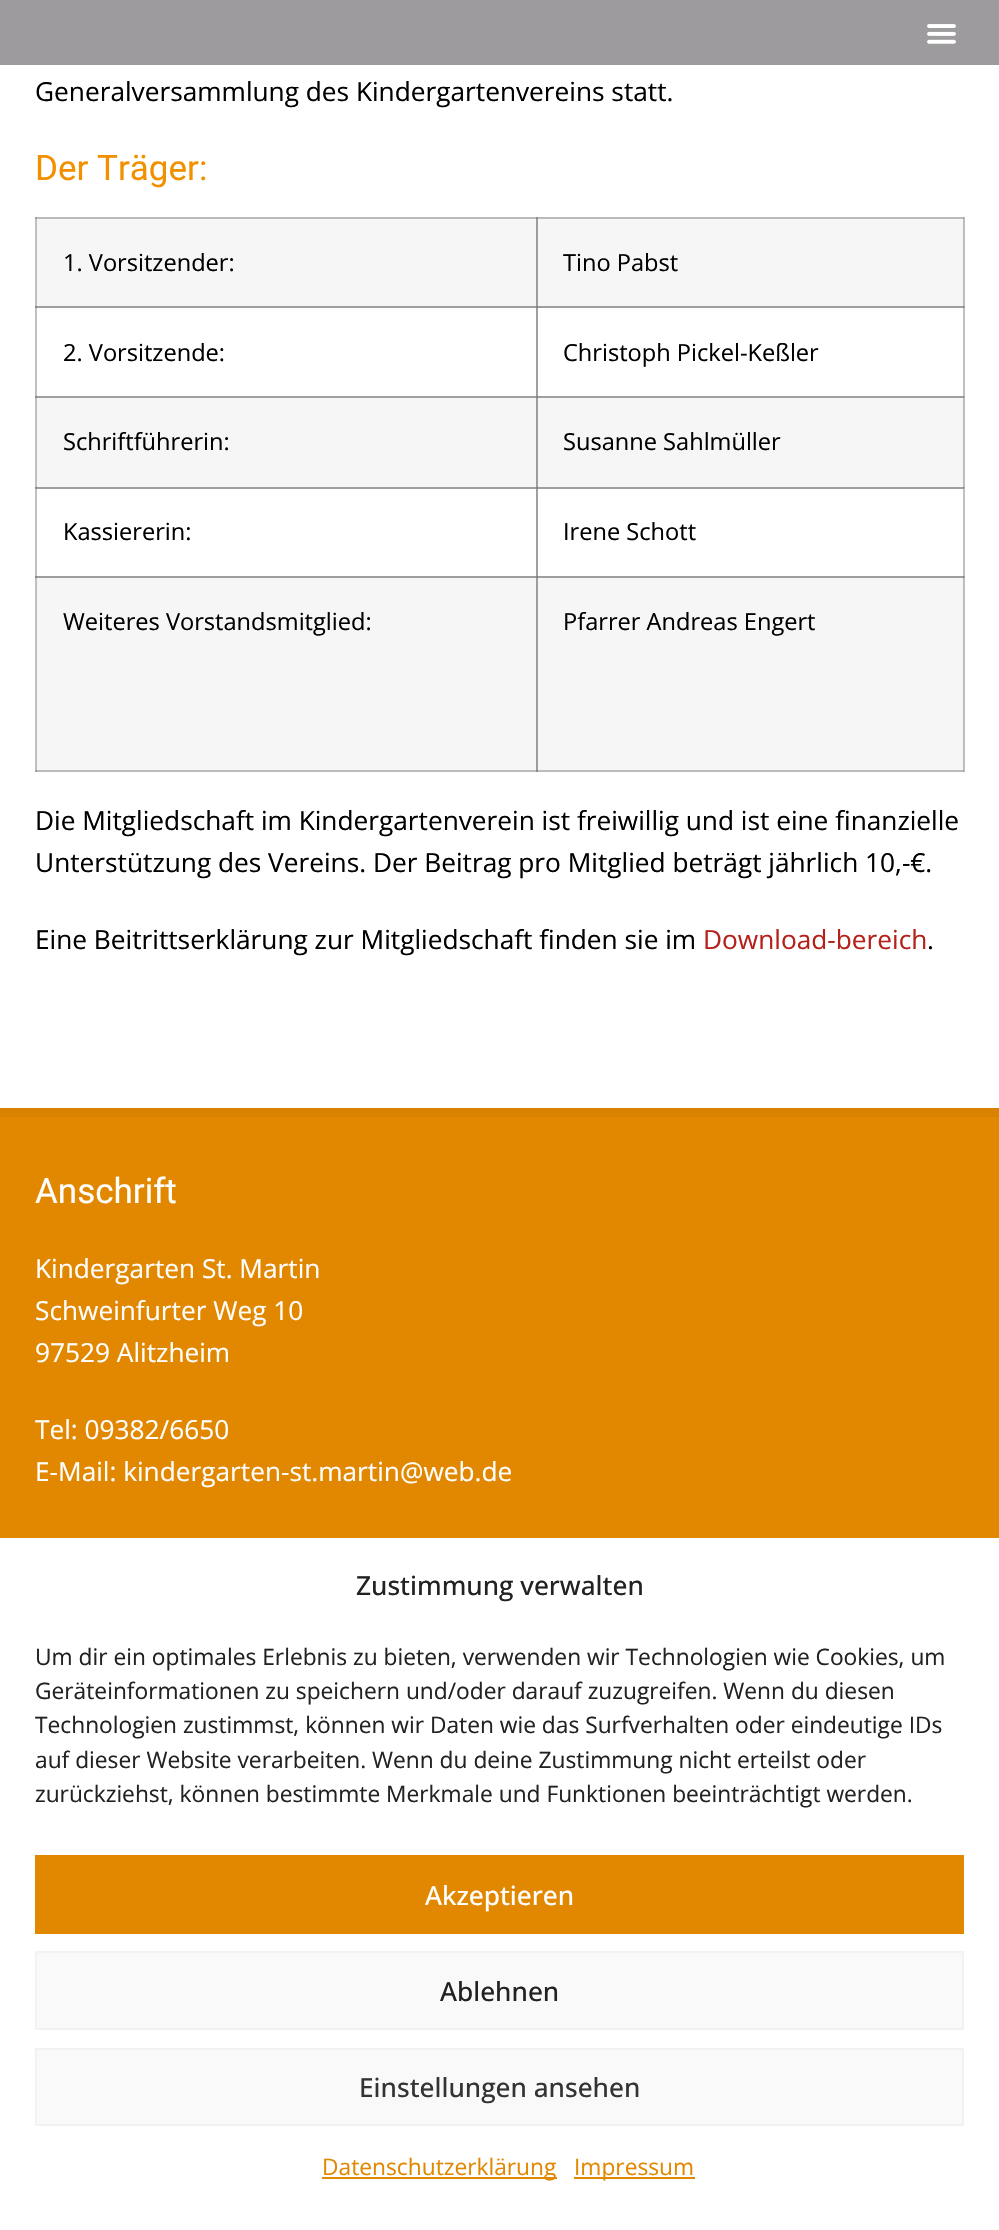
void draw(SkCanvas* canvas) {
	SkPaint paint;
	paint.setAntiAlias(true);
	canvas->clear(0xffffffff);
	paint.setColor(0xffc0c0c0);
	canvas->drawRect(SkRect::MakeXYWH(35, 217, 2, 555), paint);
	paint.setColor(0xffa0a0a0);
	canvas->drawRect(SkRect::MakeXYWH(35, 217, 2, 2), paint);
	paint.setColor(0xffc0c0c0);
	canvas->drawRect(SkRect::MakeXYWH(964, 217, 1, 91), paint);
	paint.setColor(0xff888888);
	canvas->drawRect(SkRect::MakeXYWH(35, 306, 2, 2), paint);
	paint.setColor(0xffa0a0a0);
	canvas->drawRect(SkRect::MakeXYWH(536, 306, 2, 91), paint);
	paint.setColor(0xffc0c0c0);
	canvas->drawRect(SkRect::MakeXYWH(963, 306, 2, 91), paint);
	paint.setColor(0xffa0a0a0);
	canvas->drawRect(SkRect::MakeXYWH(963, 306, 2, 2), paint);
	canvas->drawRect(SkRect::MakeXYWH(35, 396, 502, 1), paint);
	paint.setColor(0xff909090);
	canvas->drawRect(SkRect::MakeXYWH(35, 397, 2, 1), paint);
	paint.setColor(0xff888888);
	canvas->drawRect(SkRect::MakeXYWH(35, 396, 2, 1), paint);
	paint.setColor(0xffc0c0c0);
	canvas->drawRect(SkRect::MakeXYWH(964, 396, 1, 92), paint);
	paint.setColor(0xffa0a0a0);
	canvas->drawRect(SkRect::MakeXYWH(536, 396, 429, 1), paint);
	paint.setColor(0xff828282);
	canvas->drawRect(SkRect::MakeXYWH(536, 396, 2, 1), paint);
	paint.setColor(0xff888888);
	canvas->drawRect(SkRect::MakeXYWH(963, 396, 1, 1), paint);
	paint.setColor(0xffa0a0a0);
	canvas->drawRect(SkRect::MakeXYWH(35, 487, 502, 2), paint);
	paint.setColor(0xff909090);
	canvas->drawRect(SkRect::MakeXYWH(35, 488, 2, 1), paint);
	paint.setColor(0xff888888);
	canvas->drawRect(SkRect::MakeXYWH(35, 487, 2, 1), paint);
	paint.setColor(0xffa0a0a0);
	canvas->drawRect(SkRect::MakeXYWH(536, 487, 2, 91), paint);
	paint.setColor(0xffc0c0c0);
	canvas->drawRect(SkRect::MakeXYWH(963, 487, 2, 91), paint);
	paint.setColor(0xffa0a0a0);
	canvas->drawRect(SkRect::MakeXYWH(963, 487, 2, 1), paint);
	canvas->drawRect(SkRect::MakeXYWH(35, 770, 2, 2), paint);
	paint.setColor(0xff888888);
	canvas->drawRect(SkRect::MakeXYWH(35, 576, 2, 2), paint);
	paint.setColor(0xffc0c0c0);
	canvas->drawRect(SkRect::MakeXYWH(964, 576, 1, 196), paint);
	paint.setColor(0xffa0a0a0);
	canvas->drawRect(SkRect::MakeXYWH(963, 576, 2, 2), paint);
	paint.setColor(0xff9d9b9e);
	canvas->drawRect(SkRect::MakeXYWH(0, 0, 999, 65), paint);
	canvas->drawImageRect(SkImages::DeferredFromEncodedData(SkData::MakeFromFileName("img1.png")), SkRect::MakeXYWH(927, 24, 29, 20), SkSamplingOptions());
	SkFont f1(fontMgr->matchFamilyStyle("Open Sans", SkFontStyle::Normal()), 26.25);
	f1.setSubpixel(true);
	paint.setColor(0xff000000);
	canvas->drawString("Generalversammlung des Kindergartenvereins statt.", 35, 101, f1, paint);
	SkFont f2(fontMgr->matchFamilyStyle("Roboto", SkFontStyle::Normal()), 35);
	f2.setSubpixel(true);
	paint.setColor(0xfff19100);
	canvas->drawString("Der Träger:", 35, 180, f2, paint);
	paint.setColor(0xfff6f6f6);
	canvas->drawRect(SkRect::MakeXYWH(37, 219, 499, 87), paint);
	paint.setColor(0xffbbbbbb);
	canvas->drawRect(SkRect::MakeXYWH(37, 217, 499, 2), paint);
	paint.setColor(0xff9e9e9e);
	canvas->drawRect(SkRect::MakeXYWH(37, 306, 499, 2), paint);
	SkFont f3(fontMgr->matchFamilyStyle("Open Sans", SkFontStyle::Normal()), 23.6);
	f3.setSubpixel(true);
	paint.setColor(0xff000000);
	canvas->drawString("1. Vorsitzender:", 63, 271, f3, paint);
	paint.setColor(0xfff6f6f6);
	canvas->drawRect(SkRect::MakeXYWH(538, 219, 425, 87), paint);
	paint.setColor(0xff9e9e9e);
	canvas->drawRect(SkRect::MakeXYWH(536, 217, 2, 91), paint);
	paint.setColor(0xffbbbbbb);
	canvas->drawRect(SkRect::MakeXYWH(963, 217, 1, 91), paint);
	canvas->drawRect(SkRect::MakeXYWH(536, 217, 428, 2), paint);
	paint.setColor(0xff8f8f8f);
	canvas->drawRect(SkRect::MakeXYWH(536, 217, 2, 2), paint);
	paint.setColor(0xff888888);
	canvas->drawRect(SkRect::MakeXYWH(536, 217, 1, 2), paint);
	paint.setColor(0xff9e9e9e);
	canvas->drawRect(SkRect::MakeXYWH(963, 217, 1, 2), paint);
	paint.setColor(0xff000000);
	canvas->drawString("Tino Pabst", 563, 271, f3, paint);
	canvas->drawString("2. Vorsitzende:", 63, 361, f3, paint);
	paint.setColor(0xff9e9e9e);
	canvas->drawRect(SkRect::MakeXYWH(536, 306, 428, 2), paint);
	paint.setColor(0xff828282);
	canvas->drawRect(SkRect::MakeXYWH(536, 306, 2, 2), paint);
	paint.setColor(0xff888888);
	canvas->drawRect(SkRect::MakeXYWH(963, 306, 1, 2), paint);
	paint.setColor(0xff000000);
	canvas->drawString("Christoph Pickel-Keßler", 563, 361, f3, paint);
	paint.setColor(0xfff6f6f6);
	canvas->drawRect(SkRect::MakeXYWH(37, 398, 499, 89), paint);
	paint.setColor(0xff9e9e9e);
	canvas->drawRect(SkRect::MakeXYWH(37, 397, 499, 1), paint);
	paint.setColor(0xff000000);
	canvas->drawString("Schriftführerin:", 63, 450, f3, paint);
	paint.setColor(0xfff6f6f6);
	canvas->drawRect(SkRect::MakeXYWH(538, 398, 425, 89), paint);
	paint.setColor(0xff9e9e9e);
	canvas->drawRect(SkRect::MakeXYWH(536, 397, 2, 90), paint);
	paint.setColor(0xffbbbbbb);
	canvas->drawRect(SkRect::MakeXYWH(963, 397, 1, 90), paint);
	paint.setColor(0xff9e9e9e);
	canvas->drawRect(SkRect::MakeXYWH(536, 397, 428, 1), paint);
	paint.setColor(0xff888888);
	canvas->drawRect(SkRect::MakeXYWH(536, 397, 2, 1), paint);
	paint.setColor(0xff828282);
	canvas->drawRect(SkRect::MakeXYWH(536, 397, 1, 1), paint);
	paint.setColor(0xff8f8f8f);
	canvas->drawRect(SkRect::MakeXYWH(963, 397, 1, 1), paint);
	paint.setColor(0xff000000);
	canvas->drawString("Susanne Sahlmüller", 563, 450, f3, paint);
	canvas->drawString("Kassiererin:", 63, 540, f3, paint);
	paint.setColor(0xffa0a0a0);
	canvas->drawRect(SkRect::MakeXYWH(536, 487, 428, 2), paint);
	paint.setColor(0xff888888);
	canvas->drawRect(SkRect::MakeXYWH(536, 488, 2, 1), paint);
	paint.setColor(0xff828282);
	canvas->drawRect(SkRect::MakeXYWH(536, 487, 2, 1), paint);
	canvas->drawRect(SkRect::MakeXYWH(536, 487, 1, 2), paint);
	paint.setColor(0xff909090);
	canvas->drawRect(SkRect::MakeXYWH(963, 487, 1, 2), paint);
	paint.setColor(0xff888888);
	canvas->drawRect(SkRect::MakeXYWH(963, 487, 1, 1), paint);
	paint.setColor(0xff000000);
	canvas->drawString("Irene Schott", 563, 540, f3, paint);
	paint.setColor(0xfff6f6f6);
	canvas->drawRect(SkRect::MakeXYWH(37, 578, 499, 192), paint);
	paint.setColor(0xffbbbbbb);
	canvas->drawRect(SkRect::MakeXYWH(37, 770, 499, 2), paint);
	paint.setColor(0xff9e9e9e);
	canvas->drawRect(SkRect::MakeXYWH(37, 576, 499, 2), paint);
	paint.setColor(0xff000000);
	canvas->drawString("Weiteres Vorstandsmitglied:", 63, 630, f3, paint);
	paint.setColor(0xfff6f6f6);
	canvas->drawRect(SkRect::MakeXYWH(538, 578, 425, 192), paint);
	paint.setColor(0xff9e9e9e);
	canvas->drawRect(SkRect::MakeXYWH(536, 576, 2, 196), paint);
	paint.setColor(0xffbbbbbb);
	canvas->drawRect(SkRect::MakeXYWH(536, 770, 428, 2), paint);
	paint.setColor(0xff8f8f8f);
	canvas->drawRect(SkRect::MakeXYWH(536, 770, 2, 2), paint);
	paint.setColor(0xff888888);
	canvas->drawRect(SkRect::MakeXYWH(536, 770, 1, 2), paint);
	paint.setColor(0xffbbbbbb);
	canvas->drawRect(SkRect::MakeXYWH(963, 576, 1, 196), paint);
	paint.setColor(0xff9e9e9e);
	canvas->drawRect(SkRect::MakeXYWH(963, 770, 1, 2), paint);
	canvas->drawRect(SkRect::MakeXYWH(536, 576, 428, 2), paint);
	paint.setColor(0xff828282);
	canvas->drawRect(SkRect::MakeXYWH(536, 576, 2, 2), paint);
	paint.setColor(0xff888888);
	canvas->drawRect(SkRect::MakeXYWH(963, 576, 1, 2), paint);
	paint.setColor(0xff000000);
	canvas->drawString("Pfarrer Andreas Engert", 563, 630, f3, paint);
	canvas->drawString("Die Mitgliedschaft im Kindergartenverein ist freiwillig und ist eine finanzielle", 35, 830, f1, paint);
	canvas->drawString("Unterstützung des Vereins. Der Beitrag pro Mitglied beträgt jährlich 10,-€.", 35, 872, f1, paint);
	canvas->drawString("Eine Beitrittserklärung zur Mitgliedschaft finden sie im", 35, 949, f1, paint);
	paint.setColor(0xffb5211a);
	canvas->drawString("Download-bereich", 703, 949, f1, paint);
	paint.setColor(0xff000000);
	canvas->drawString(".", 927, 949, f1, paint);
	paint.setColor(0xffe28800);
	canvas->drawRect(SkRect::MakeXYWH(0, 1117, 999, 421), paint);
	paint.setColor(0xffd88200);
	canvas->drawRect(SkRect::MakeXYWH(0, 1108, 999, 9), paint);
	paint.setColor(0xffffffff);
	canvas->drawString("Anschrift", 35, 1203, f2, paint);
	canvas->drawString("Kindergarten St. Martin", 35, 1278, f1, paint);
	canvas->drawString("Schweinfurter Weg 10", 35, 1320, f1, paint);
	canvas->drawString("97529 Alitzheim", 35, 1362, f1, paint);
	canvas->drawString("Tel: 09382/6650", 35, 1439, f1, paint);
	canvas->drawString("E-Mail: kindergarten-st.martin@web.de", 35, 1481, f1, paint);
	SkFont f4(fontMgr->matchFamilyStyle("Open Sans", SkFontStyle(500, SkFontStyle::kNormal_Width, SkFontStyle::kUpright_Slant)), 26.25);
	f4.setSubpixel(true);
	paint.setColor(0xff222222);
	canvas->drawString("Zustimmung verwalten", 356, 1595, f4, paint);
	SkFont f5(fontMgr->matchFamilyStyle("Open Sans", SkFontStyle::Normal()), 22.75);
	f5.setSubpixel(true);
	canvas->drawString("Um dir ein optimales Erlebnis zu bieten, verwenden wir Technologien wie Cookies, um", 35, 1665, f5, paint);
	canvas->drawString("Geräteinformationen zu speichern und/oder darauf zuzugreifen. Wenn du diesen", 35, 1699, f5, paint);
	canvas->drawString("Technologien zustimmst, können wir Daten wie das Surfverhalten oder eindeutige IDs", 35, 1733, f5, paint);
	canvas->drawString("auf dieser Website verarbeiten. Wenn du deine Zustimmung nicht erteilst oder", 35, 1768, f5, paint);
	canvas->drawString("zurückziehst, können bestimmte Merkmale und Funktionen beeinträchtigt werden.", 35, 1802, f5, paint);
	paint.setColor(0xffe28800);
	canvas->drawRect(SkRect::MakeXYWH(35, 1855, 929, 79), paint);
	paint.setColor(0xffffffff);
	canvas->drawString("Akzeptieren", 425, 1905, f4, paint);
	paint.setColor(0xfff9f9f9);
	canvas->drawRect(SkRect::MakeXYWH(36, 1952, 927, 77), paint);
	paint.setStroke(true);
	paint.setStrokeWidth(2);
	paint.setColor(0xfff2f2f2);
	canvas->drawRect(SkRect::MakeXYWH(36, 1952, 927, 77), paint);
	paint.setStroke(false);
	paint.setColor(0xff222222);
	canvas->drawString("Ablehnen", 440, 2001, f4, paint);
	paint.setColor(0xfff9f9f9);
	canvas->drawRect(SkRect::MakeXYWH(36, 2049, 927, 76), paint);
	paint.setStroke(true);
	paint.setColor(0xfff2f2f2);
	canvas->drawRect(SkRect::MakeXYWH(36, 2049, 927, 76), paint);
	paint.setStroke(false);
	paint.setColor(0xff333333);
	canvas->drawString("Einstellungen ansehen", 359, 2097, f4, paint);
	paint.setColor(0xffe28800);
	canvas->drawRect(SkRect::MakeXYWH(322, 2177, 235, 2), paint);
	canvas->drawString("Datenschutzerklärung", 322, 2175, f5, paint);
	canvas->drawRect(SkRect::MakeXYWH(574, 2177, 121, 2), paint);
	canvas->drawString("Impressum", 574, 2175, f5, paint);
}
